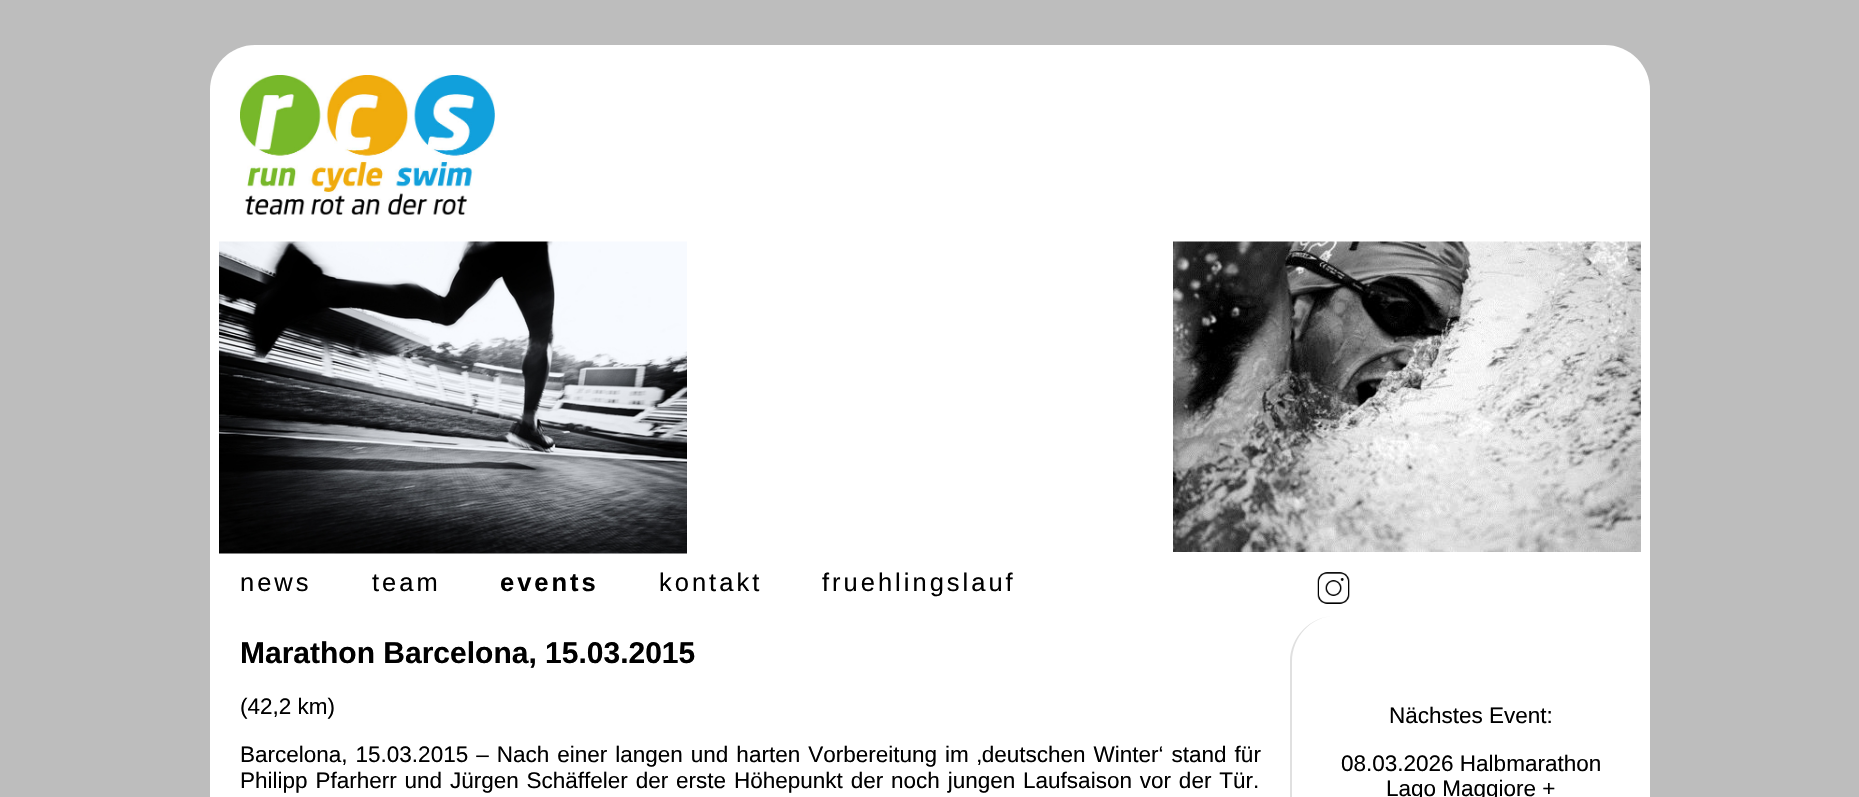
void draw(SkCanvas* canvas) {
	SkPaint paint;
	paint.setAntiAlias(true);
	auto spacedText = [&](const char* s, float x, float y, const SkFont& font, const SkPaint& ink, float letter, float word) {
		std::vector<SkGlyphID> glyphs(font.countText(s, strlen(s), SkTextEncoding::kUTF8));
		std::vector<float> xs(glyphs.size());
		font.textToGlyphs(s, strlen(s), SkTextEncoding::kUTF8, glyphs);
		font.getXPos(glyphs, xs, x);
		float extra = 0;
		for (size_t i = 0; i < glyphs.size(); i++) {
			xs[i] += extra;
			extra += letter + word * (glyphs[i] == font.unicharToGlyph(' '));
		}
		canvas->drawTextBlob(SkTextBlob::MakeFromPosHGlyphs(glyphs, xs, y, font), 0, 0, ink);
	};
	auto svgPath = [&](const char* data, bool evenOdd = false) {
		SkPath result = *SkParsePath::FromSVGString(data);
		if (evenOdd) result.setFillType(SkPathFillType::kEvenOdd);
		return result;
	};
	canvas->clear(0xffbdbdbd);
	paint.setColor(0xffffffff);
	canvas->drawRoundRect(SkRect::MakeXYWH(210, 45, 1440, 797), 45, 45, paint);
	canvas->drawImageRect(SkImages::DeferredFromEncodedData(SkData::MakeFromFileName("img1.png")), SkRect::MakeXYWH(240, 75, 255, 140), SkSamplingOptions());
	canvas->drawImageRect(SkImages::DeferredFromEncodedData(SkData::MakeFromFileName("img2.png")), SkRect::MakeXYWH(219, 241, 468, 313), SkSamplingOptions());
	canvas->drawImageRect(SkImages::DeferredFromEncodedData(SkData::MakeFromFileName("img3.png")), SkRect::MakeXYWH(1173, 241, 468, 311), SkSamplingOptions());
	SkFont f1(fontMgr->matchFamilyStyle("Liberation Sans", SkFontStyle::Normal()), 25.5);
	f1.setSubpixel(true);
	paint.setColor(0xff000000);
	spacedText("news", 240, 591, f1, paint, 3, 0);
	spacedText("team", 372, 591, f1, paint, 3, 0);
	SkFont f2(fontMgr->matchFamilyStyle("Liberation Sans", SkFontStyle::Bold()), 25.5);
	f2.setSubpixel(true);
	spacedText("events", 500, 591, f2, paint, 3, 0);
	spacedText("kontakt", 659, 591, f1, paint, 3, 0);
	spacedText("fruehlingslauf", 822, 591, f1, paint, 3, 0);
	canvas->drawImageRect(SkImages::DeferredFromEncodedData(SkData::MakeFromFileName("img4.png")), SkRect::MakeXYWH(1317, 572, 33, 32), SkSamplingOptions());
	SkFont f3(fontMgr->matchFamilyStyle("Liberation Sans", SkFontStyle::Bold()), 30);
	f3.setSubpixel(true);
	canvas->drawString("Marathon Barcelona, 15.03.2015", 240, 663, f3, paint);
	SkFont f4(fontMgr->matchFamilyStyle("Liberation Sans", SkFontStyle::Normal()), 22.5);
	f4.setSubpixel(true);
	canvas->drawString("(42,2 km)", 240, 714, f4, paint);
	spacedText("Barcelona, 15.03.2015 – Nach einer langen und harten Vorbereitung im ‚deutschen Winter‘ stand für", 240, 762, f4, paint, 0, 1.75);
	spacedText("Philipp Pfarherr und Jürgen Schäffeler der erste Höhepunkt der noch jungen Laufsaison vor der Tür.", 240, 788, f4, paint, 0, 1.6);
	paint.setColor(0xffe0e0e0);
	canvas->drawPath(svgPath("M1335 616H1650V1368H1335C1310 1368 1290 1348 1290 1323V662C1290 637 1310 616 1335 616ZM1335 616H1650V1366H1335C1311 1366 1292 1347 1292 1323V662C1292 637 1311 616 1335 616Z", true), paint);
	paint.setColor(0xff000000);
	canvas->drawString("Nächstes Event:", 1389, 723, f4, paint);
	canvas->drawString("08.03.2026 Halbmarathon", 1341, 771, f4, paint);
	canvas->drawString("Lago Maggiore +", 1386, 796, f4, paint);
}
